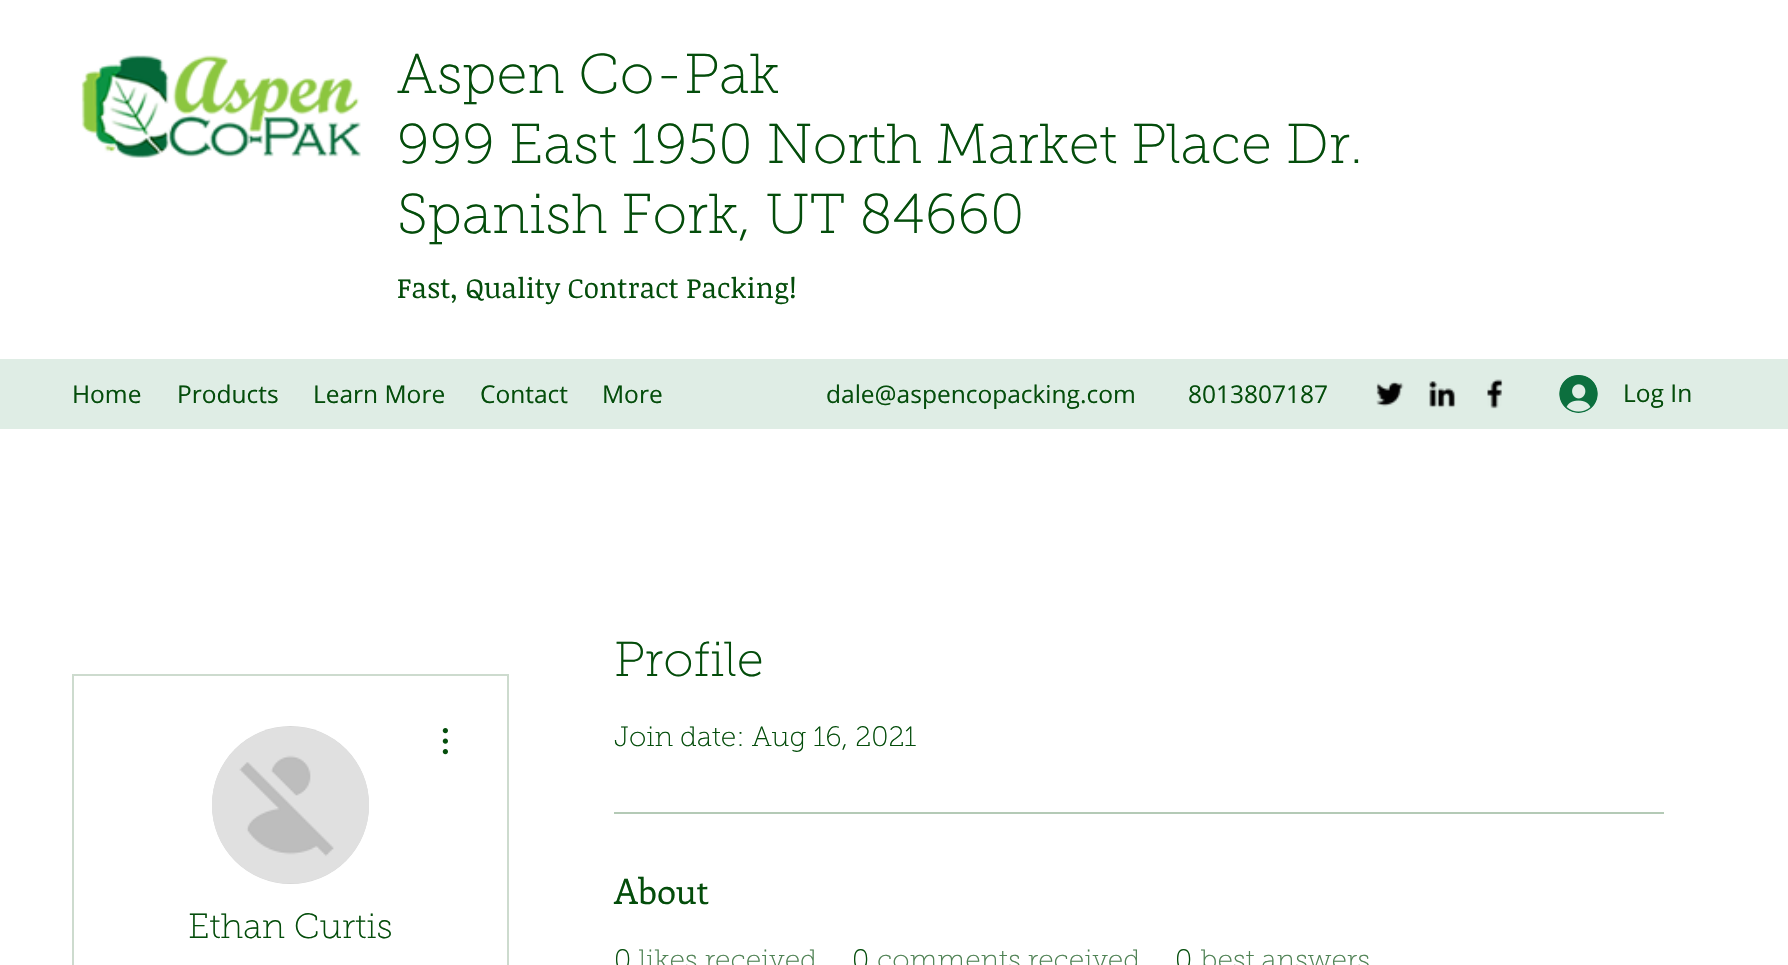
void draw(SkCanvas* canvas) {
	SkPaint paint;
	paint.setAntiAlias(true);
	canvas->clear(0xffffffff);
	canvas->drawImageRect(SkImages::DeferredFromEncodedData(SkData::MakeFromFileName("img1.png")), SkRect::MakeXYWH(81, 55, 280, 103), SkSamplingOptions());
	SkFont f1(fontMgr->matchFamilyStyle("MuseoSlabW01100", SkFontStyle(100, SkFontStyle::kNormal_Width, SkFontStyle::kUpright_Slant)), 56);
	f1.setSubpixel(true);
	paint.setColor(0xff044d0b);
	canvas->drawString("Aspen Co-Pak", 397, 93, f1, paint);
	canvas->drawString("999 East 1950 North Market Place Dr.", 397, 163, f1, paint);
	canvas->drawString("Spanish Fork, UT 84660", 397, 233, f1, paint);
	SkFont f2(fontMgr->matchFamilyStyle("Noticia Text", SkFontStyle::Normal()), 28);
	f2.setSubpixel(true);
	canvas->drawString("Fast, Quality Contract Packing!", 397, 298, f2, paint);
	paint.setColor(0xffdfede5);
	canvas->drawRect(SkRect::MakeXYWH(0, 359, 1788, 70), paint);
	SkFont f3(fontMgr->matchFamilyStyle("Open Sans", SkFontStyle::Normal()), 24.5);
	f3.setSubpixel(true);
	paint.setColor(0xff044d0b);
	canvas->drawString("Home", 72, 403, f3, paint);
	canvas->drawString("Products", 177, 403, f3, paint);
	canvas->drawString("Learn More", 313, 403, f3, paint);
	canvas->drawString("Contact", 480, 403, f3, paint);
	canvas->drawString("More", 602, 403, f3, paint);
	canvas->drawString("dale@aspencopacking.com", 826, 403, f3, paint);
	canvas->drawString("8013807187", 1188, 403, f3, paint);
	canvas->drawImageRect(SkImages::DeferredFromEncodedData(SkData::MakeFromFileName("img2.png")), SkRect::MakeXYWH(1376, 381, 28, 26), SkSamplingOptions());
	canvas->drawImageRect(SkImages::DeferredFromEncodedData(SkData::MakeFromFileName("img3.png")), SkRect::MakeXYWH(1429, 381, 27, 27), SkSamplingOptions());
	canvas->drawImageRect(SkImages::DeferredFromEncodedData(SkData::MakeFromFileName("img4.png")), SkRect::MakeXYWH(1487, 379, 16, 30), SkSamplingOptions());
	canvas->drawImageRect(SkImages::DeferredFromEncodedData(SkData::MakeFromFileName("img5.png")), SkRect::MakeXYWH(1559, 375, 39, 38), SkSamplingOptions());
	canvas->drawString("Log In", 1623, 402, f3, paint);
	paint.setStroke(true);
	paint.setStrokeWidth(2);
	paint.setColor(0xffcddbce);
	canvas->drawRect(SkRect::MakeXYWH(73, 675, 435, 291), paint);
	paint.setStroke(false);
	paint.setColor(0xffd8d8d8);
	canvas->drawRoundRect(SkRect::MakeXYWH(212, 726, 157, 158), 78.5, 78.5, paint);
	canvas->drawImageRect(SkImages::DeferredFromEncodedData(SkData::MakeFromFileName("img6.png")), SkRect::MakeXYWH(212, 727, 157, 156), SkSamplingOptions());
	canvas->drawImageRect(SkImages::DeferredFromEncodedData(SkData::MakeFromFileName("img7.png")), SkRect::MakeXYWH(442, 728, 6, 27), SkSamplingOptions());
	SkFont f4(fontMgr->matchFamilyStyle("MuseoSlabW01100", SkFontStyle(100, SkFontStyle::kNormal_Width, SkFontStyle::kUpright_Slant)), 35);
	f4.setSubpixel(true);
	paint.setColor(0xff044d0b);
	canvas->drawString("Ethan Curtis", 188, 938, f4, paint);
	SkFont f5(fontMgr->matchFamilyStyle("MuseoSlabW01100", SkFontStyle(100, SkFontStyle::kNormal_Width, SkFontStyle::kUpright_Slant)), 49);
	f5.setSubpixel(true);
	canvas->drawString("Profile", 614, 676, f5, paint);
	SkFont f6(fontMgr->matchFamilyStyle("MuseoSlabW01100", SkFontStyle(100, SkFontStyle::kNormal_Width, SkFontStyle::kUpright_Slant)), 28);
	f6.setSubpixel(true);
	canvas->drawString("Join date: Aug 16, 2021", 614, 746, f6, paint);
	paint.setColor(0xffb4cab6);
	canvas->drawRect(SkRect::MakeXYWH(614, 812, 1050, 2), paint);
	SkFont f7(fontMgr->matchFamilyStyle("Enriqueta", SkFontStyle::Normal()), 35);
	f7.setSubpixel(true);
	paint.setColor(0xff044d0b);
	canvas->drawString("About", 614, 904, f7, paint);
	canvas->drawString("0", 614, 969, f6, paint);
	paint.setColor(0xff4f8254);
	canvas->drawString("likes received", 639, 969, f6, paint);
	paint.setColor(0xff044d0b);
	canvas->drawString("0", 852, 969, f6, paint);
	paint.setColor(0xff4f8254);
	canvas->drawString("comments received", 877, 969, f6, paint);
	paint.setColor(0xff044d0b);
	canvas->drawString("0", 1175, 969, f6, paint);
	paint.setColor(0xff4f8254);
	canvas->drawString("best answers", 1201, 969, f6, paint);
}
